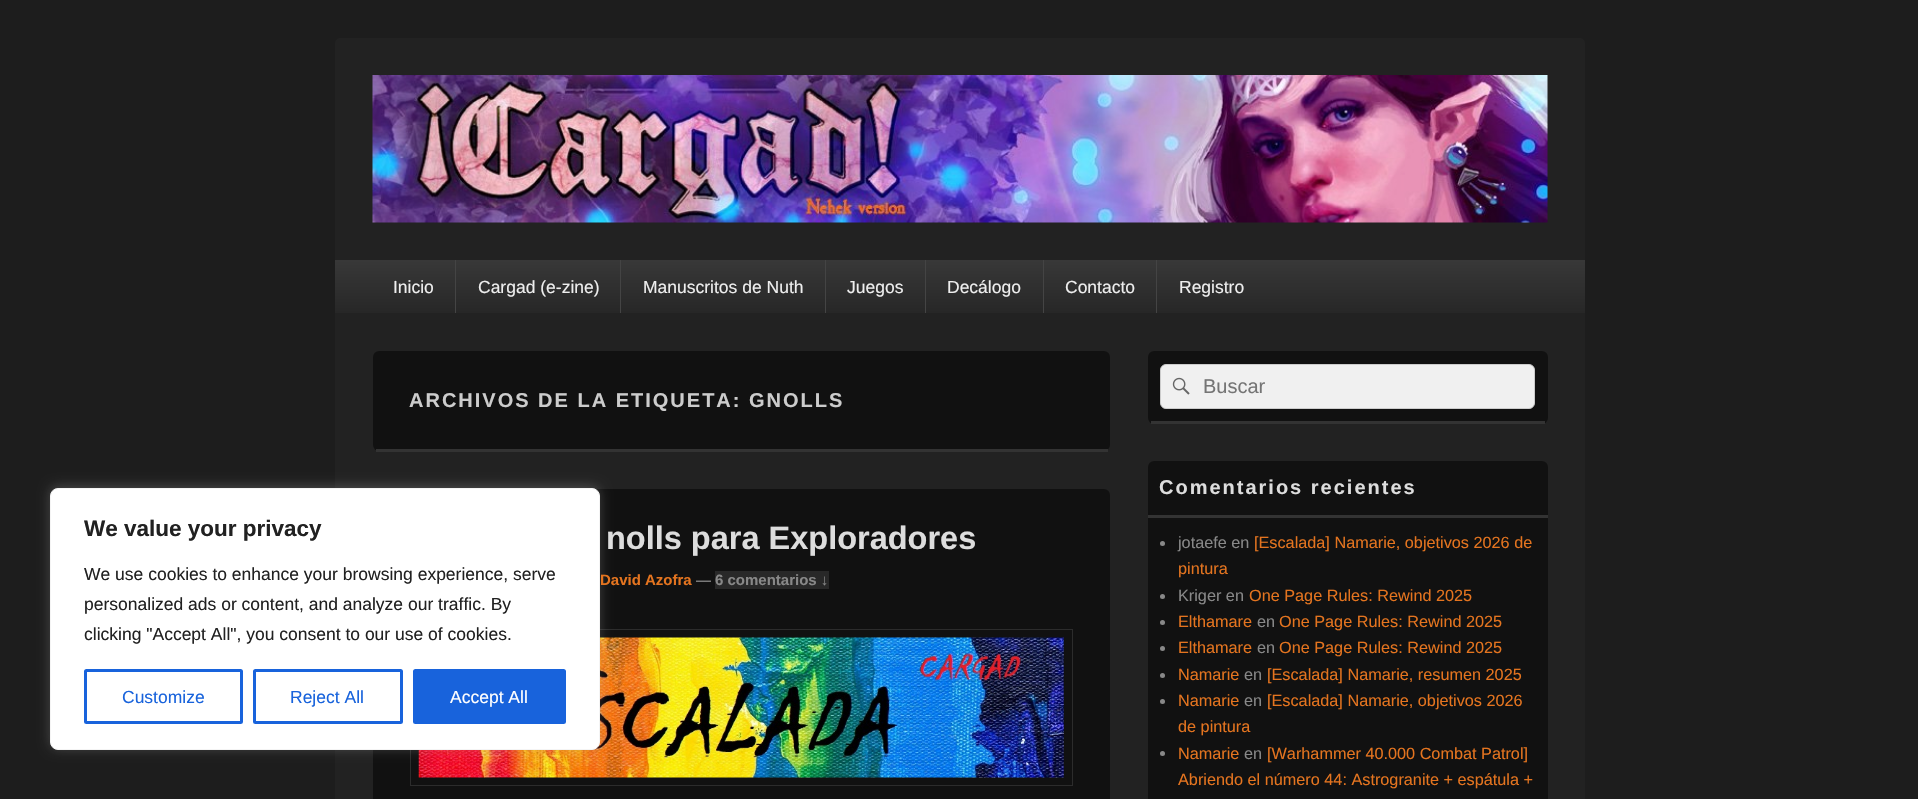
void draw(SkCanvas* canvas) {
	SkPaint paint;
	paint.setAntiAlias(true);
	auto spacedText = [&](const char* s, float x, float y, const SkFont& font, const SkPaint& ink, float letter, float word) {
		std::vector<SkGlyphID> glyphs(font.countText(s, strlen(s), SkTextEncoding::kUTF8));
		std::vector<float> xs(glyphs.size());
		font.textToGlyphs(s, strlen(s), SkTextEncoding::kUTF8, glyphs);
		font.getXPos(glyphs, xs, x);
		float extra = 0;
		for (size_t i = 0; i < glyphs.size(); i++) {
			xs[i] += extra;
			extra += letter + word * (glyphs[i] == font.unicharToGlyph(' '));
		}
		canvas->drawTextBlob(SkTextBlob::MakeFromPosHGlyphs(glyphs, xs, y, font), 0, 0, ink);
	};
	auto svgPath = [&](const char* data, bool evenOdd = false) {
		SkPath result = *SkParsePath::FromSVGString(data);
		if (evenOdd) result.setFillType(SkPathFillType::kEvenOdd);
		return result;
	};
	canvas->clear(0xff1d1d1d);
	paint.setColor(0xff222222);
	canvas->drawRect(SkRect::MakeXYWH(335, 314, 1250, 485), paint);
	paint.setColor(0xff111111);
	canvas->drawRoundRect(SkRect::MakeXYWH(373, 489, 737, 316), 6, 6, paint);
	paint.setStroke(true);
	paint.setStrokeWidth(1);
	paint.setColor(0xff2c2c2c);
	canvas->drawRect(SkRect::MakeXYWH(410.5, 629.5, 662, 156), paint);
	canvas->drawImageRect(SkImages::DeferredFromEncodedData(SkData::MakeFromFileName("img2.png")), SkRect::MakeXYWH(418, 637, 646, 141), SkSamplingOptions());
	paint.setStroke(false);
	paint.setColor(0x4dacabab);
	paint.setMaskFilter(SkMaskFilter::MakeBlur(kNormal_SkBlurStyle, 6));
	canvas->drawRoundRect(SkRect::MakeXYWH(50, 486, 550, 263), 8, 8, paint);
	paint.setMaskFilter(nullptr);
	paint.setColor(0xffffffff);
	canvas->drawRoundRect(SkRect::MakeXYWH(50.5, 488.5, 549, 261), 7.5, 7.5, paint);
	paint.setStroke(true);
	paint.setColor(0xfff4f4f4);
	canvas->drawRoundRect(SkRect::MakeXYWH(50.5, 488.5, 549, 261), 7.5, 7.5, paint);
	SkFont f1(fontMgr->matchFamilyStyle("Liberation Sans", SkFontStyle::Bold()), 22.5);
	f1.setSubpixel(true);
	paint.setStroke(false);
	paint.setColor(0xff212121);
	canvas->drawString("We value your privacy", 84, 536, f1, paint);
	SkFont f2(fontMgr->matchFamilyStyle("Liberation Sans", SkFontStyle::Normal()), 17.5);
	f2.setSubpixel(true);
	canvas->drawString("We use cookies to enhance your browsing experience, serve", 84, 580, f2, paint);
	canvas->drawString("personalized ads or content, and analyze our traffic. By", 84, 610, f2, paint);
	canvas->drawString("clicking \"Accept All\", you consent to our use of cookies.", 84, 640, f2, paint);
	paint.setStroke(true);
	paint.setStrokeWidth(3);
	paint.setColor(0xff1863dc);
	canvas->drawRoundRect(SkRect::MakeXYWH(85.5, 670.5, 156, 52), 1, 1, paint);
	paint.setStroke(false);
	canvas->drawString("Customize", 122, 703, f2, paint);
	paint.setStroke(true);
	canvas->drawRoundRect(SkRect::MakeXYWH(254.5, 670.5, 147, 52), 1, 1, paint);
	paint.setStroke(false);
	canvas->drawString("Reject All", 290, 703, f2, paint);
	canvas->drawRoundRect(SkRect::MakeXYWH(414.5, 670.5, 150, 52), 1, 1, paint);
	paint.setStroke(true);
	canvas->drawRoundRect(SkRect::MakeXYWH(414.5, 670.5, 150, 52), 1, 1, paint);
	paint.setStroke(false);
	paint.setColor(0xffffffff);
	canvas->drawString("Accept All", 450, 703, f2, paint);
	paint.setColor(0xff222222);
	canvas->drawPath(svgPath("M341 38H1579C1582.5 38 1585 40.5 1585 44V314H335V44C335 40.5 337.5 38 341 38Z"), paint);
	canvas->drawImageRect(SkImages::DeferredFromEncodedData(SkData::MakeFromFileName("img1.png")), SkRect::MakeXYWH(372, 75, 1176, 148), SkSamplingOptions());
	{
		const SkColor colors[] = {0xff383838, 0xff272727};
		const float stops[] = {0, 1};
		const SkPoint ends[] = {{960, 260}, {960, 313}};
		paint.setShader(SkGradientShader::MakeLinear(ends, colors, stops, 2, SkTileMode::kClamp));
		paint.setAlpha(255);
	}
	canvas->drawRect(SkRect::MakeXYWH(335, 260, 1250, 53), paint);
	paint.setShader(nullptr);
	paint.setColor(0xffeeeeee);
	canvas->drawString("Inicio", 393, 293, f2, paint);
	paint.setColor(0xff444444);
	canvas->drawRect(SkRect::MakeXYWH(455, 260, 1, 53), paint);
	paint.setColor(0xffeeeeee);
	canvas->drawString("Cargad (e-zine)", 478, 293, f2, paint);
	paint.setColor(0xff444444);
	canvas->drawRect(SkRect::MakeXYWH(620, 260, 1, 53), paint);
	paint.setColor(0xffeeeeee);
	canvas->drawString("Manuscritos de Nuth", 643, 293, f2, paint);
	paint.setColor(0xff444444);
	canvas->drawRect(SkRect::MakeXYWH(825, 260, 1, 53), paint);
	paint.setColor(0xffeeeeee);
	canvas->drawString("Juegos", 847, 293, f2, paint);
	paint.setColor(0xff444444);
	canvas->drawRect(SkRect::MakeXYWH(925, 260, 1, 53), paint);
	paint.setColor(0xffeeeeee);
	canvas->drawString("Decálogo", 947, 293, f2, paint);
	paint.setColor(0xff444444);
	canvas->drawRect(SkRect::MakeXYWH(1043, 260, 1, 53), paint);
	paint.setColor(0xffeeeeee);
	canvas->drawString("Contacto", 1065, 293, f2, paint);
	paint.setColor(0xff444444);
	canvas->drawRect(SkRect::MakeXYWH(1156, 260, 1, 53), paint);
	paint.setColor(0xffeeeeee);
	canvas->drawString("Registro", 1179, 293, f2, paint);
	paint.setColor(0xff111111);
	canvas->drawRoundRect(SkRect::MakeXYWH(373, 351, 737, 100), 6, 6, paint);
	paint.setColor(0xff333333);
	canvas->drawRect(SkRect::MakeXYWH(376, 449, 732, 3), paint);
	SkFont f3(fontMgr->matchFamilyStyle("Liberation Sans", SkFontStyle::Bold()), 20);
	f3.setSubpixel(true);
	paint.setColor(0xffcccccc);
	spacedText("ARCHIVOS DE LA ETIQUETA: GNOLLS", 409, 407, f3, paint, 2, 0);
	SkFont f4(fontMgr->matchFamilyStyle("Liberation Sans", SkFontStyle::Bold()), 32.5);
	f4.setSubpixel(true);
	paint.setColor(0xffdddddd);
	canvas->drawString("nolls para Exploradores", 606, 549, f4, paint);
	SkFont f5(fontMgr->matchFamilyStyle("Liberation Sans", SkFontStyle::Bold()), 15);
	f5.setSubpixel(true);
	paint.setColor(0xffe4741f);
	canvas->drawString("David Azofra", 600, 585, f5, paint);
	SkFont f6(fontMgr->matchFamilyStyle("Liberation Sans", SkFontStyle::Normal()), 15);
	f6.setSubpixel(true);
	paint.setColor(0xff999999);
	canvas->drawString("—", 696, 585, f6, paint);
	paint.setColor(0xff282828);
	canvas->drawRect(SkRect::MakeXYWH(715, 571, 114, 18), paint);
	paint.setColor(0xff888888);
	canvas->drawString("6 comentarios ↓", 715, 585, f5, paint);
	paint.setColor(0xff111111);
	canvas->drawRoundRect(SkRect::MakeXYWH(1148, 351, 400, 73), 6, 6, paint);
	paint.setColor(0xff333333);
	canvas->drawRect(SkRect::MakeXYWH(1151, 421, 394, 3), paint);
	paint.setColor(0xfff0f0f0);
	canvas->drawRoundRect(SkRect::MakeXYWH(1160.5, 364.5, 374, 44), 5.5, 5.5, paint);
	paint.setStroke(true);
	paint.setStrokeWidth(1);
	paint.setColor(0xffcccccc);
	canvas->drawRoundRect(SkRect::MakeXYWH(1160.5, 364.5, 374, 44), 5.5, 5.5, paint);
	canvas->drawImageRect(SkImages::DeferredFromEncodedData(SkData::MakeFromFileName("img3.png")), SkRect::MakeXYWH(1172, 377, 18, 18), SkSamplingOptions());
	SkFont f7(fontMgr->matchFamilyStyle("Liberation Sans", SkFontStyle::Normal()), 20);
	f7.setSubpixel(true);
	paint.setStroke(false);
	paint.setColor(0xff757575);
	canvas->drawString("Buscar", 1203, 393, f7, paint);
	paint.setColor(0xff111111);
	canvas->drawRoundRect(SkRect::MakeXYWH(1148, 461, 400, 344), 6, 6, paint);
	paint.setColor(0xff333333);
	canvas->drawRect(SkRect::MakeXYWH(1148, 515, 400, 3), paint);
	paint.setColor(0xffdddddd);
	spacedText("Comentarios recientes", 1159, 494, f3, paint, 2, 0);
	paint.setColor(0xff888888);
	canvas->drawCircle(1162.5, 543.5, 2.5, paint);
	SkFont f8(fontMgr->matchFamilyStyle("Liberation Sans", SkFontStyle::Normal()), 16.25);
	f8.setSubpixel(true);
	canvas->drawString("jotaefe en", 1178, 548, f8, paint);
	paint.setColor(0xffe4741f);
	canvas->drawString("[Escalada] Namarie, objetivos 2026 de", 1254, 548, f8, paint);
	canvas->drawString("pintura", 1178, 574, f8, paint);
	paint.setColor(0xff888888);
	canvas->drawCircle(1162.5, 596.5, 2.5, paint);
	canvas->drawString("Kriger en", 1178, 601, f8, paint);
	paint.setColor(0xffe4741f);
	canvas->drawString("One Page Rules: Rewind 2025", 1249, 601, f8, paint);
	paint.setColor(0xff888888);
	canvas->drawCircle(1162.5, 622.5, 2.5, paint);
	paint.setColor(0xffe4741f);
	canvas->drawString("Elthamare", 1178, 627, f8, paint);
	paint.setColor(0xff888888);
	canvas->drawString("en", 1257, 627, f8, paint);
	paint.setColor(0xffe4741f);
	canvas->drawString("One Page Rules: Rewind 2025", 1279, 627, f8, paint);
	paint.setColor(0xff888888);
	canvas->drawCircle(1162.5, 648.5, 2.5, paint);
	paint.setColor(0xffe4741f);
	canvas->drawString("Elthamare", 1178, 653, f8, paint);
	paint.setColor(0xff888888);
	canvas->drawString("en", 1257, 653, f8, paint);
	paint.setColor(0xffe4741f);
	canvas->drawString("One Page Rules: Rewind 2025", 1279, 653, f8, paint);
	paint.setColor(0xff888888);
	canvas->drawCircle(1162.5, 675.5, 2.5, paint);
	paint.setColor(0xffe4741f);
	canvas->drawString("Namarie", 1178, 680, f8, paint);
	paint.setColor(0xff888888);
	canvas->drawString("en", 1244, 680, f8, paint);
	paint.setColor(0xffe4741f);
	canvas->drawString("[Escalada] Namarie, resumen 2025", 1267, 680, f8, paint);
	paint.setColor(0xff888888);
	canvas->drawCircle(1162.5, 701.5, 2.5, paint);
	paint.setColor(0xffe4741f);
	canvas->drawString("Namarie", 1178, 706, f8, paint);
	paint.setColor(0xff888888);
	canvas->drawString("en", 1244, 706, f8, paint);
	paint.setColor(0xffe4741f);
	canvas->drawString("[Escalada] Namarie, objetivos 2026", 1267, 706, f8, paint);
	canvas->drawString("de pintura", 1178, 732, f8, paint);
	paint.setColor(0xff888888);
	canvas->drawCircle(1162.5, 753.5, 2.5, paint);
	paint.setColor(0xffe4741f);
	canvas->drawString("Namarie", 1178, 759, f8, paint);
	paint.setColor(0xff888888);
	canvas->drawString("en", 1244, 759, f8, paint);
	paint.setColor(0xffe4741f);
	canvas->drawString("[Warhammer 40.000 Combat Patrol]", 1267, 759, f8, paint);
	canvas->drawString("Abriendo el número 44: Astrogranite + espátula +", 1178, 785, f8, paint);
}
